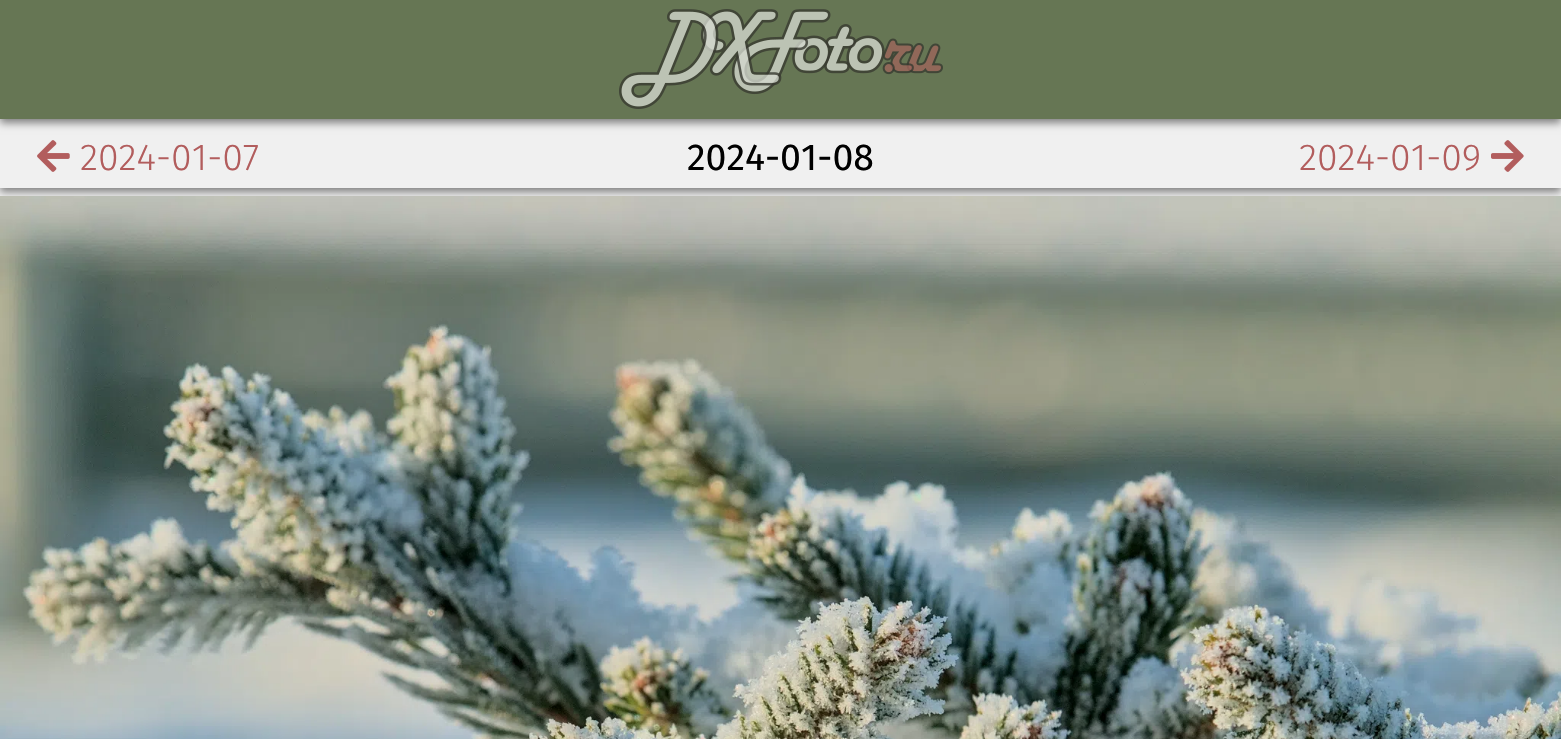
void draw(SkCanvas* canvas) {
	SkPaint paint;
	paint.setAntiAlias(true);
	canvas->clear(0xfff0f0f0);
	paint.setColor(0xff7f7f7f);
	paint.setMaskFilter(SkMaskFilter::MakeBlur(kNormal_SkBlurStyle, 4));
	canvas->drawRect(SkRect::MakeXYWH(0, 4, 1561, 119), paint);
	paint.setMaskFilter(nullptr);
	canvas->save();
	canvas->clipRect(SkRect::MakeXYWH(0, 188, 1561, 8));
	paint.setMaskFilter(SkMaskFilter::MakeBlur(kNormal_SkBlurStyle, 4));
	canvas->drawRect(SkRect::MakeXYWH(0, 123, 1561, 69), paint);
	paint.setMaskFilter(nullptr);
	canvas->restore();
	paint.setColor(0xff667654);
	canvas->drawRect(SkRect::MakeXYWH(0, 0, 1561, 119), paint);
	canvas->drawImageRect(SkImages::DeferredFromEncodedData(SkData::MakeFromFileName("img1.png")), SkRect::MakeXYWH(619, 9, 324, 100), SkSamplingOptions());
	canvas->drawImageRect(SkImages::DeferredFromEncodedData(SkData::MakeFromFileName("img2.png")), SkRect::MakeXYWH(37, 140, 33, 32), SkSamplingOptions());
	SkFont f1(fontMgr->matchFamilyStyle("Fira Sans", SkFontStyle(300, SkFontStyle::kNormal_Width, SkFontStyle::kUpright_Slant)), 37.5);
	f1.setSubpixel(true);
	paint.setColor(0xffb25d5d);
	canvas->drawString("2024-01-07", 80, 170, f1, paint);
	SkFont f2(fontMgr->matchFamilyStyle("Fira Sans", SkFontStyle::Normal()), 37.5);
	f2.setSubpixel(true);
	paint.setColor(0xff000000);
	canvas->drawString("2024-01-08", 687, 170, f2, paint);
	paint.setColor(0xffb25d5d);
	canvas->drawString("2024-01-09", 1299, 170, f1, paint);
	canvas->drawImageRect(SkImages::DeferredFromEncodedData(SkData::MakeFromFileName("img3.png")), SkRect::MakeXYWH(1491, 140, 33, 32), SkSamplingOptions());
	canvas->drawImageRect(SkImages::DeferredFromEncodedData(SkData::MakeFromFileName("img4.png")), SkRect::MakeXYWH(0, 196, 1561, 543), SkSamplingOptions());
}
